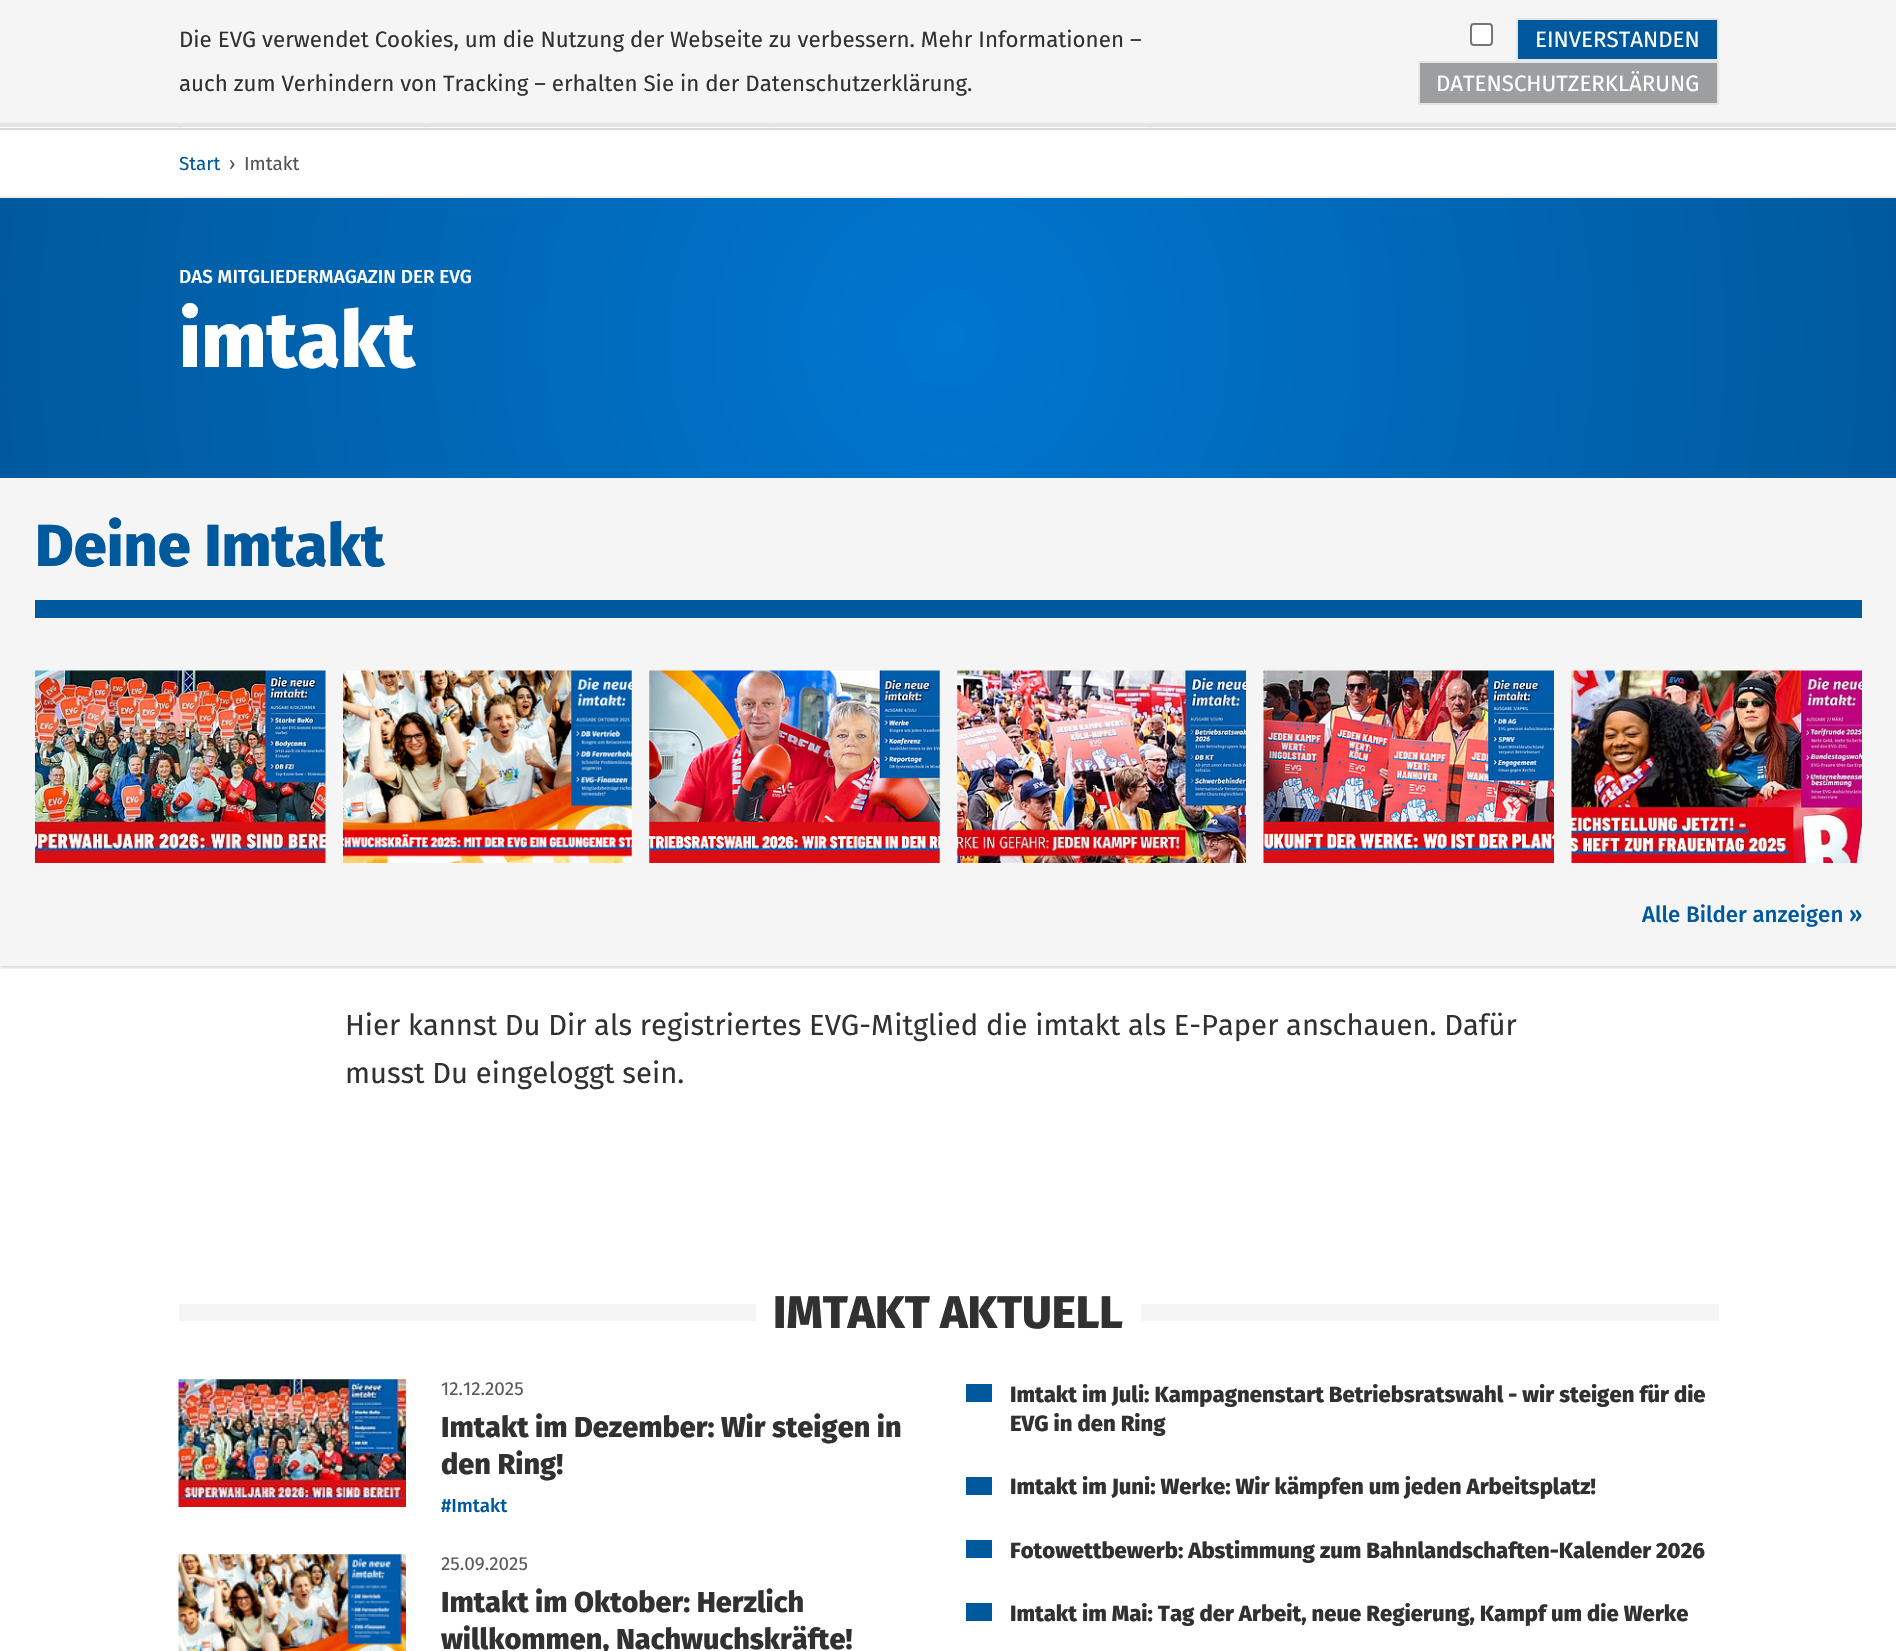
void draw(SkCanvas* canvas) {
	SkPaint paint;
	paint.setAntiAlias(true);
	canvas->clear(0xffffffff);
	paint.setColor(0xfff5f5f5);
	canvas->drawRect(SkRect::MakeXYWH(0, 0, 1896, 123), paint);
	paint.setColor(0xffe5e5e5);
	canvas->drawRect(SkRect::MakeXYWH(0, 123, 1896, 4), paint);
	SkFont f1(fontMgr->matchFamilyStyle("Fira Sans", SkFontStyle::Normal()), 22.75);
	f1.setSubpixel(true);
	paint.setColor(0xff313131);
	canvas->drawString("Die EVG verwendet Cookies, um die Nutzung der Webseite zu verbessern. Mehr Informationen –", 179, 47, f1, paint);
	canvas->drawString("auch zum Verhindern von Tracking – erhalten Sie in der Datenschutzerklärung.", 179, 91, f1, paint);
	paint.setColor(0xffffffff);
	canvas->drawRoundRect(SkRect::MakeXYWH(1471, 24, 21, 21), 3, 3, paint);
	paint.setStroke(true);
	paint.setStrokeWidth(2);
	paint.setColor(0xff767676);
	canvas->drawRoundRect(SkRect::MakeXYWH(1471, 24, 21, 21), 3, 3, paint);
	paint.setStroke(false);
	paint.setColor(0xff00599d);
	canvas->drawRect(SkRect::MakeXYWH(1517, 19, 201, 41), paint);
	paint.setStroke(true);
	paint.setColor(0xffe5e5e5);
	canvas->drawRect(SkRect::MakeXYWH(1517, 19, 201, 41), paint);
	paint.setStroke(false);
	paint.setColor(0xffffffff);
	canvas->drawString("EINVERSTANDEN", 1535, 47, f1, paint);
	paint.setColor(0xff9c9e9f);
	canvas->drawRect(SkRect::MakeXYWH(1419, 62, 299, 42), paint);
	paint.setStroke(true);
	paint.setColor(0xffe5e5e5);
	canvas->drawRect(SkRect::MakeXYWH(1419, 62, 299, 42), paint);
	paint.setStroke(false);
	paint.setColor(0xffffffff);
	canvas->drawString("DATENSCHUTZERKLÄRUNG", 1436, 91, f1, paint);
	paint.setColor(0xffd9d9d9);
	canvas->drawRect(SkRect::MakeXYWH(0, 128, 1896, 2), paint);
	paint.setColor(0xfff5f5f5);
	canvas->drawRect(SkRect::MakeXYWH(425, 127, 2, 1), paint);
	canvas->drawRect(SkRect::MakeXYWH(179, 127, 2, 1), paint);
	canvas->drawRect(SkRect::MakeXYWH(770, 127, 2, 1), paint);
	canvas->drawRect(SkRect::MakeXYWH(991, 127, 2, 1), paint);
	canvas->drawRect(SkRect::MakeXYWH(1150, 127, 2, 1), paint);
	paint.setColor(0xfff0f0f1);
	canvas->drawRect(SkRect::MakeXYWH(0, 196, 1896, 2), paint);
	SkFont f2(fontMgr->matchFamilyStyle("Fira Sans", SkFontStyle::Normal()), 19.25);
	f2.setSubpixel(true);
	paint.setColor(0xff00599d);
	canvas->drawString("Start", 179, 170, f2, paint);
	paint.setColor(0xff535353);
	canvas->drawString("›", 229, 170, f2, paint);
	canvas->drawString("Imtakt", 244, 170, f2, paint);
	{
		const SkColor colors[] = {0xff0076d0, 0xff00599d};
		const float stops[] = {0, 1};
		paint.setShader(SkGradientShader::MakeRadial({949, 338}, 959, colors, stops, 2, SkTileMode::kClamp));
		paint.setAlpha(255);
	}
	canvas->drawRect(SkRect::MakeXYWH(0, 198, 1896, 280), paint);
	SkFont f3(fontMgr->matchFamilyStyle("Fira Sans", SkFontStyle(500, SkFontStyle::kNormal_Width, SkFontStyle::kUpright_Slant)), 19.25);
	f3.setSubpixel(true);
	paint.setShader(nullptr);
	paint.setColor(0xffffffff);
	canvas->drawString("DAS MITGLIEDERMAGAZIN DER EVG", 179, 283, f3, paint);
	SkFont f4(fontMgr->matchFamilyStyle("Fira Sans", SkFontStyle(800, SkFontStyle::kNormal_Width, SkFontStyle::kUpright_Slant)), 80.5);
	f4.setSubpixel(true);
	canvas->drawString("imtakt", 179, 367, f4, paint);
	paint.setColor(0x26000000);
	paint.setMaskFilter(SkMaskFilter::MakeBlur(kNormal_SkBlurStyle, 1));
	canvas->drawRect(SkRect::MakeXYWH(0, 480, 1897, 488), paint);
	paint.setMaskFilter(nullptr);
	paint.setColor(0xfff5f5f5);
	canvas->drawRect(SkRect::MakeXYWH(0, 478, 1896, 488), paint);
	SkFont f5(fontMgr->matchFamilyStyle("Fira Sans", SkFontStyle(800, SkFontStyle::kNormal_Width, SkFontStyle::kUpright_Slant)), 61.25);
	f5.setSubpixel(true);
	paint.setColor(0xff00599d);
	canvas->drawString("Deine Imtakt", 35, 566, f5, paint);
	canvas->drawRect(SkRect::MakeXYWH(35, 600, 1827, 18), paint);
	canvas->drawImageRect(SkImages::DeferredFromEncodedData(SkData::MakeFromFileName("img1.png")), SkRect::MakeXYWH(35, 670, 291, 193), SkSamplingOptions());
	canvas->drawImageRect(SkImages::DeferredFromEncodedData(SkData::MakeFromFileName("img2.png")), SkRect::MakeXYWH(343, 670, 289, 193), SkSamplingOptions());
	canvas->drawImageRect(SkImages::DeferredFromEncodedData(SkData::MakeFromFileName("img3.png")), SkRect::MakeXYWH(649, 670, 291, 193), SkSamplingOptions());
	canvas->drawImageRect(SkImages::DeferredFromEncodedData(SkData::MakeFromFileName("img4.png")), SkRect::MakeXYWH(957, 670, 289, 193), SkSamplingOptions());
	canvas->drawImageRect(SkImages::DeferredFromEncodedData(SkData::MakeFromFileName("img5.png")), SkRect::MakeXYWH(1263, 670, 291, 193), SkSamplingOptions());
	canvas->drawImageRect(SkImages::DeferredFromEncodedData(SkData::MakeFromFileName("img6.png")), SkRect::MakeXYWH(1571, 670, 291, 193), SkSamplingOptions());
	SkFont f6(fontMgr->matchFamilyStyle("Fira Sans", SkFontStyle(500, SkFontStyle::kNormal_Width, SkFontStyle::kUpright_Slant)), 22.75);
	f6.setSubpixel(true);
	canvas->drawString("Alle Bilder anzeigen »", 1642, 922, f6, paint);
	SkFont f7(fontMgr->matchFamilyStyle("Fira Sans", SkFontStyle::Normal()), 29.75);
	f7.setSubpixel(true);
	paint.setColor(0xff313131);
	canvas->drawString("Hier kannst Du Dir als registriertes EVG-Mitglied die imtakt als E-Paper anschauen. Dafür", 345, 1035, f7, paint);
	canvas->drawString("musst Du eingeloggt sein.", 345, 1083, f7, paint);
	paint.setColor(0xfff5f5f5);
	canvas->drawRect(SkRect::MakeXYWH(179, 1304, 577, 17), paint);
	SkFont f8(fontMgr->matchFamilyStyle("Fira Sans", SkFontStyle(800, SkFontStyle::kNormal_Width, SkFontStyle::kUpright_Slant)), 47.25);
	f8.setSubpixel(true);
	paint.setColor(0xff313131);
	canvas->drawString("IMTAKT AKTUELL", 773, 1328, f8, paint);
	paint.setColor(0xfff5f5f5);
	canvas->drawRect(SkRect::MakeXYWH(1141, 1304, 578, 17), paint);
	canvas->drawImageRect(SkImages::DeferredFromEncodedData(SkData::MakeFromFileName("img7.png")), SkRect::MakeXYWH(178, 1379, 228, 128), SkSamplingOptions());
	paint.setColor(0xff5a5a5a);
	canvas->drawString("12.12.2025", 441, 1395, f2, paint);
	SkFont f9(fontMgr->matchFamilyStyle("Fira Sans", SkFontStyle(800, SkFontStyle::kNormal_Width, SkFontStyle::kUpright_Slant)), 29.75);
	f9.setSubpixel(true);
	paint.setColor(0xff313131);
	canvas->drawString("Imtakt im Dezember: Wir steigen in", 441, 1437, f9, paint);
	canvas->drawString("den Ring!", 441, 1474, f9, paint);
	paint.setColor(0xff00599d);
	canvas->drawString("#Imtakt", 441, 1512, f3, paint);
	canvas->drawImageRect(SkImages::DeferredFromEncodedData(SkData::MakeFromFileName("img8.png")), SkRect::MakeXYWH(178, 1554, 228, 97), SkSamplingOptions());
	paint.setColor(0xff5a5a5a);
	canvas->drawString("25.09.2025", 441, 1570, f2, paint);
	paint.setColor(0xff313131);
	canvas->drawString("Imtakt im Oktober: Herzlich", 441, 1612, f9, paint);
	canvas->drawString("willkommen, Nachwuchskräfte!", 441, 1649, f9, paint);
	paint.setColor(0xff00599d);
	canvas->drawRect(SkRect::MakeXYWH(966, 1384, 26, 18), paint);
	SkFont f10(fontMgr->matchFamilyStyle("Fira Sans", SkFontStyle(800, SkFontStyle::kNormal_Width, SkFontStyle::kUpright_Slant)), 22.75);
	f10.setSubpixel(true);
	paint.setColor(0xff313131);
	canvas->drawString("Imtakt im Juli: Kampagnenstart Betriebsratswahl - wir steigen für die", 1010, 1402, f10, paint);
	canvas->drawString("EVG in den Ring", 1010, 1431, f10, paint);
	paint.setColor(0xff00599d);
	canvas->drawRect(SkRect::MakeXYWH(966, 1477, 26, 18), paint);
	paint.setColor(0xff313131);
	canvas->drawString("Imtakt im Juni: Werke: Wir kämpfen um jeden Arbeitsplatz!", 1010, 1494, f10, paint);
	paint.setColor(0xff00599d);
	canvas->drawRect(SkRect::MakeXYWH(966, 1540, 26, 18), paint);
	paint.setColor(0xff313131);
	canvas->drawString("Fotowettbewerb: Abstimmung zum Bahnlandschaften-Kalender 2026", 1010, 1558, f10, paint);
	paint.setColor(0xff00599d);
	canvas->drawRect(SkRect::MakeXYWH(966, 1603, 26, 18), paint);
	paint.setColor(0xff313131);
	canvas->drawString("Imtakt im Mai: Tag der Arbeit, neue Regierung, Kampf um die Werke", 1010, 1621, f10, paint);
}
